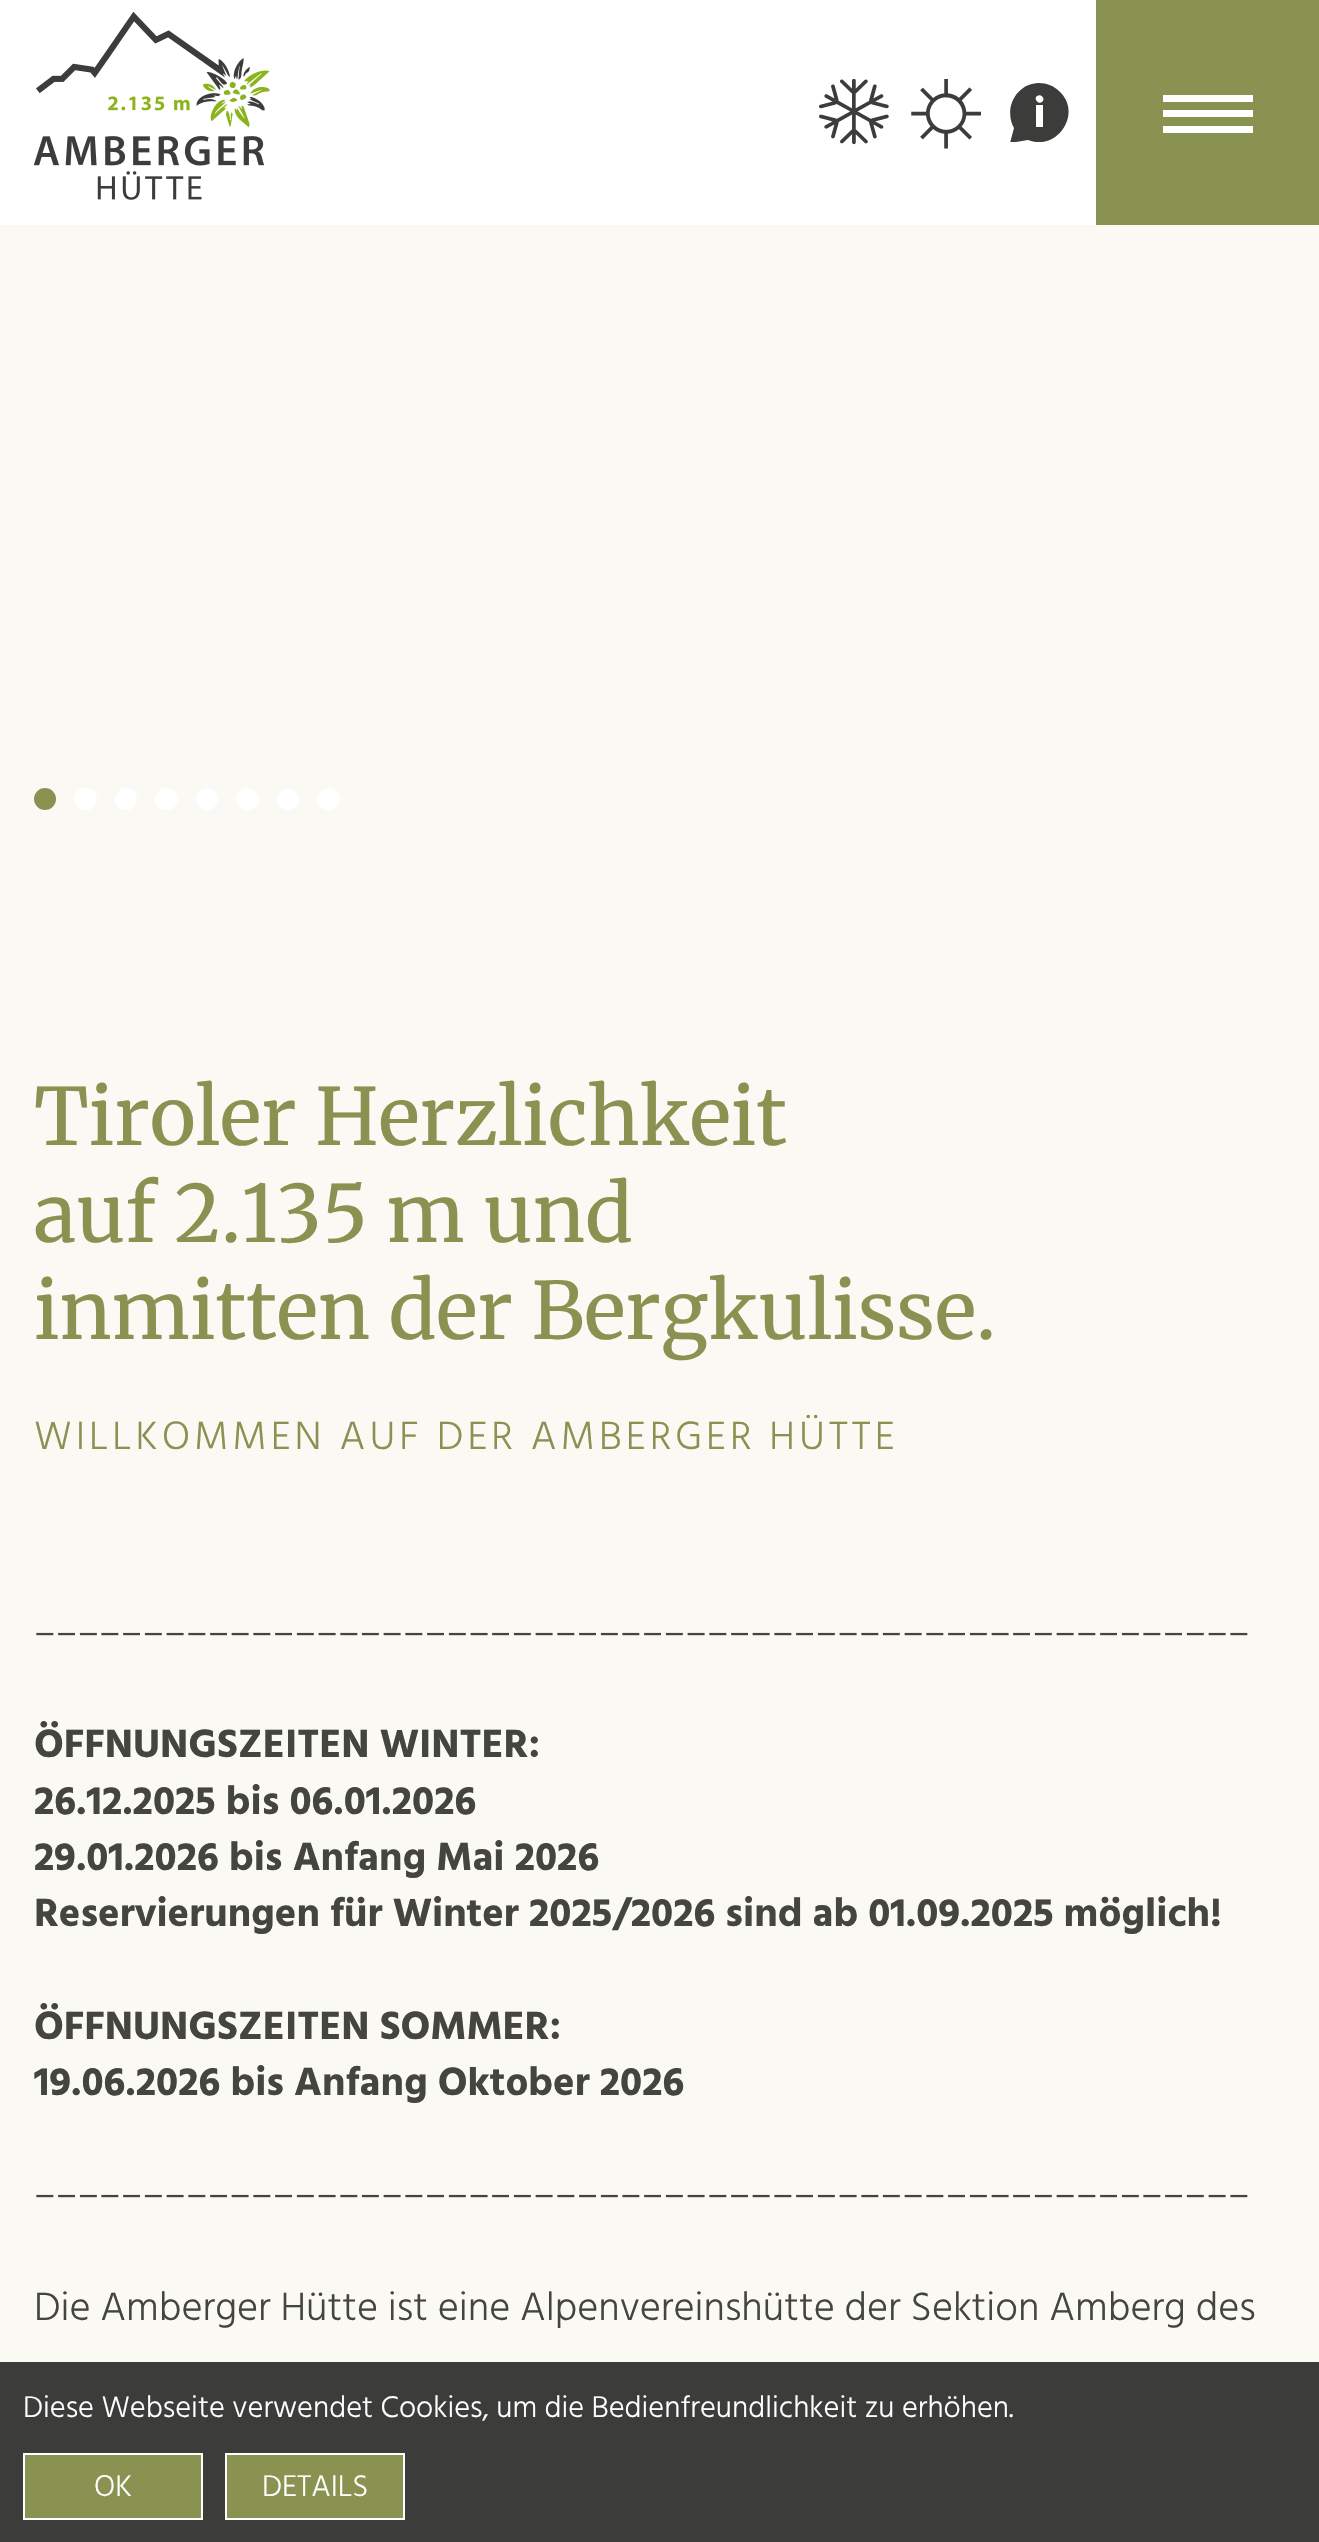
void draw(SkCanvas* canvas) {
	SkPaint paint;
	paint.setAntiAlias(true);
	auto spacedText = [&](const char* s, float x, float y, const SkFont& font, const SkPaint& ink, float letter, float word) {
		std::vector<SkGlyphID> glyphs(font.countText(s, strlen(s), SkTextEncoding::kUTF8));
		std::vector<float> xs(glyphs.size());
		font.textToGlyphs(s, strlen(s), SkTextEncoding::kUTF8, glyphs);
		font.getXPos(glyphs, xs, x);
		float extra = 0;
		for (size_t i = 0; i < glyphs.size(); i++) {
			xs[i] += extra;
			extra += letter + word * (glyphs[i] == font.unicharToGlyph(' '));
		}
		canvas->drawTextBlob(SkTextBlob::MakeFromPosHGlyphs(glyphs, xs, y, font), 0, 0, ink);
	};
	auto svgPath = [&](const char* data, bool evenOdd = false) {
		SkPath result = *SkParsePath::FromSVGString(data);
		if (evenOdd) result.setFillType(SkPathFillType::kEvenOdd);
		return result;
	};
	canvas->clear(0xfffaf9f4);
	paint.setColor(0xffffffff);
	canvas->drawRect(SkRect::MakeXYWH(0, 0, 1096, 225), paint);
	canvas->drawImageRect(SkImages::DeferredFromEncodedData(SkData::MakeFromFileName("img1.png")), SkRect::MakeXYWH(34, 11, 236, 189), SkSamplingOptions());
	canvas->drawImageRect(SkImages::DeferredFromEncodedData(SkData::MakeFromFileName("img2.png")), SkRect::MakeXYWH(819, 79, 70, 66), SkSamplingOptions());
	canvas->drawImageRect(SkImages::DeferredFromEncodedData(SkData::MakeFromFileName("img3.png")), SkRect::MakeXYWH(911, 79, 70, 70), SkSamplingOptions());
	canvas->save();
	canvas->clipRect(SkRect::MakeXYWH(1010, 83, 59, 59));
	paint.setColor(0xff3c3c3b);
	canvas->drawPath(svgPath("M1039 83C1017 83 1003 108 1014 128L1010 143L1028 140C1058 152 1083 112 1059 91C1054 86 1047 83 1039 83ZM1043 127H1036V105H1043ZM1042 102C1039 105 1033 99 1037 96C1041 93 1046 99 1042 102Z"), paint);
	canvas->restore();
	paint.setColor(0xff8a9251);
	canvas->drawRect(SkRect::MakeXYWH(1096, 0, 223, 225), paint);
	paint.setColor(0xffffffff);
	canvas->drawRect(SkRect::MakeXYWH(1163, 95, 90, 7), paint);
	canvas->drawRect(SkRect::MakeXYWH(1163, 110, 90, 7), paint);
	canvas->drawRect(SkRect::MakeXYWH(1163, 126, 90, 7), paint);
	paint.setColor(0xff8a9251);
	canvas->drawCircle(45, 799, 11, paint);
	paint.setColor(0xffffffff);
	canvas->drawRoundRect(SkRect::MakeXYWH(74, 788, 23, 22), 11, 11, paint);
	canvas->drawCircle(126, 799, 11, paint);
	canvas->drawRoundRect(SkRect::MakeXYWH(155, 788, 23, 22), 11, 11, paint);
	canvas->drawCircle(207, 799, 11, paint);
	canvas->drawRoundRect(SkRect::MakeXYWH(236, 788, 23, 22), 11, 11, paint);
	canvas->drawCircle(288, 799, 11, paint);
	canvas->drawRoundRect(SkRect::MakeXYWH(317, 788, 23, 22), 11, 11, paint);
	SkFont f1(fontMgr->matchFamilyStyle("Merriweather", SkFontStyle(300, SkFontStyle::kNormal_Width, SkFontStyle::kUpright_Slant)), 78.75);
	f1.setSubpixel(true);
	paint.setColor(0xff8a9251);
	canvas->drawString("Tiroler Herzlichkeit", 34, 1145, f1, paint);
	canvas->drawString("auf 2.135 m und", 34, 1242, f1, paint);
	canvas->drawString("inmitten der Bergkulisse.", 34, 1339, f1, paint);
	SkFont f2(fontMgr->matchFamilyStyle("Hind Madurai", SkFontStyle(300, SkFontStyle::kNormal_Width, SkFontStyle::kUpright_Slant)), 40.5);
	f2.setSubpixel(true);
	spacedText("WILLKOMMEN AUF DER AMBERGER HÜTTE", 34, 1449, f2, paint, 4.05, 0);
	paint.setColor(0xff44453e);
	canvas->drawString("––––––––––––––––––––––––––––––––––––––––––––––––––––––––", 34, 1645, f2, paint);
	SkFont f3(fontMgr->matchFamilyStyle("Hind Madurai", SkFontStyle::Bold()), 40.5);
	f3.setSubpixel(true);
	canvas->drawString("ÖFFNUNGSZEITEN WINTER:", 34, 1757, f3, paint);
	canvas->drawString("26.12.2025 bis 06.01.2026", 34, 1814, f3, paint);
	canvas->drawString("29.01.2026 bis Anfang Mai 2026", 34, 1870, f3, paint);
	canvas->drawString("Reservierungen für Winter 2025/2026 sind ab 01.09.2025 möglich!", 34, 1926, f3, paint);
	canvas->drawString("ÖFFNUNGSZEITEN SOMMER:", 34, 2039, f3, paint);
	canvas->drawString("19.06.2026 bis Anfang Oktober 2026", 34, 2095, f3, paint);
	canvas->drawString("––––––––––––––––––––––––––––––––––––––––––––––––––––––––", 34, 2207, f2, paint);
	canvas->drawString("Die Amberger Hütte ist eine Alpenvereinshütte der Sektion Amberg des", 34, 2320, f2, paint);
	paint.setColor(0xff3c3c3b);
	canvas->drawRect(SkRect::MakeXYWH(0, 2362, 1319, 180), paint);
	SkFont f4(fontMgr->matchFamilyStyle("Hind Madurai", SkFontStyle(300, SkFontStyle::kNormal_Width, SkFontStyle::kUpright_Slant)), 30.6);
	f4.setSubpixel(true);
	paint.setColor(0xffffffff);
	canvas->drawString("Diese Webseite verwendet Cookies, um die Bedienfreundlichkeit zu erhöhen.", 23, 2417, f4, paint);
	paint.setColor(0xff8a9251);
	canvas->drawRect(SkRect::MakeXYWH(24, 2454, 178, 65), paint);
	paint.setStroke(true);
	paint.setStrokeWidth(2);
	paint.setColor(0xffffffff);
	canvas->drawRect(SkRect::MakeXYWH(24, 2454, 178, 65), paint);
	paint.setStroke(false);
	canvas->drawString("OK", 94, 2496, f4, paint);
	paint.setColor(0xff8a9251);
	canvas->drawRect(SkRect::MakeXYWH(226, 2454, 178, 65), paint);
	paint.setStroke(true);
	paint.setColor(0xffffffff);
	canvas->drawRect(SkRect::MakeXYWH(226, 2454, 178, 65), paint);
	paint.setStroke(false);
	canvas->drawString("DETAILS", 262, 2496, f4, paint);
}
